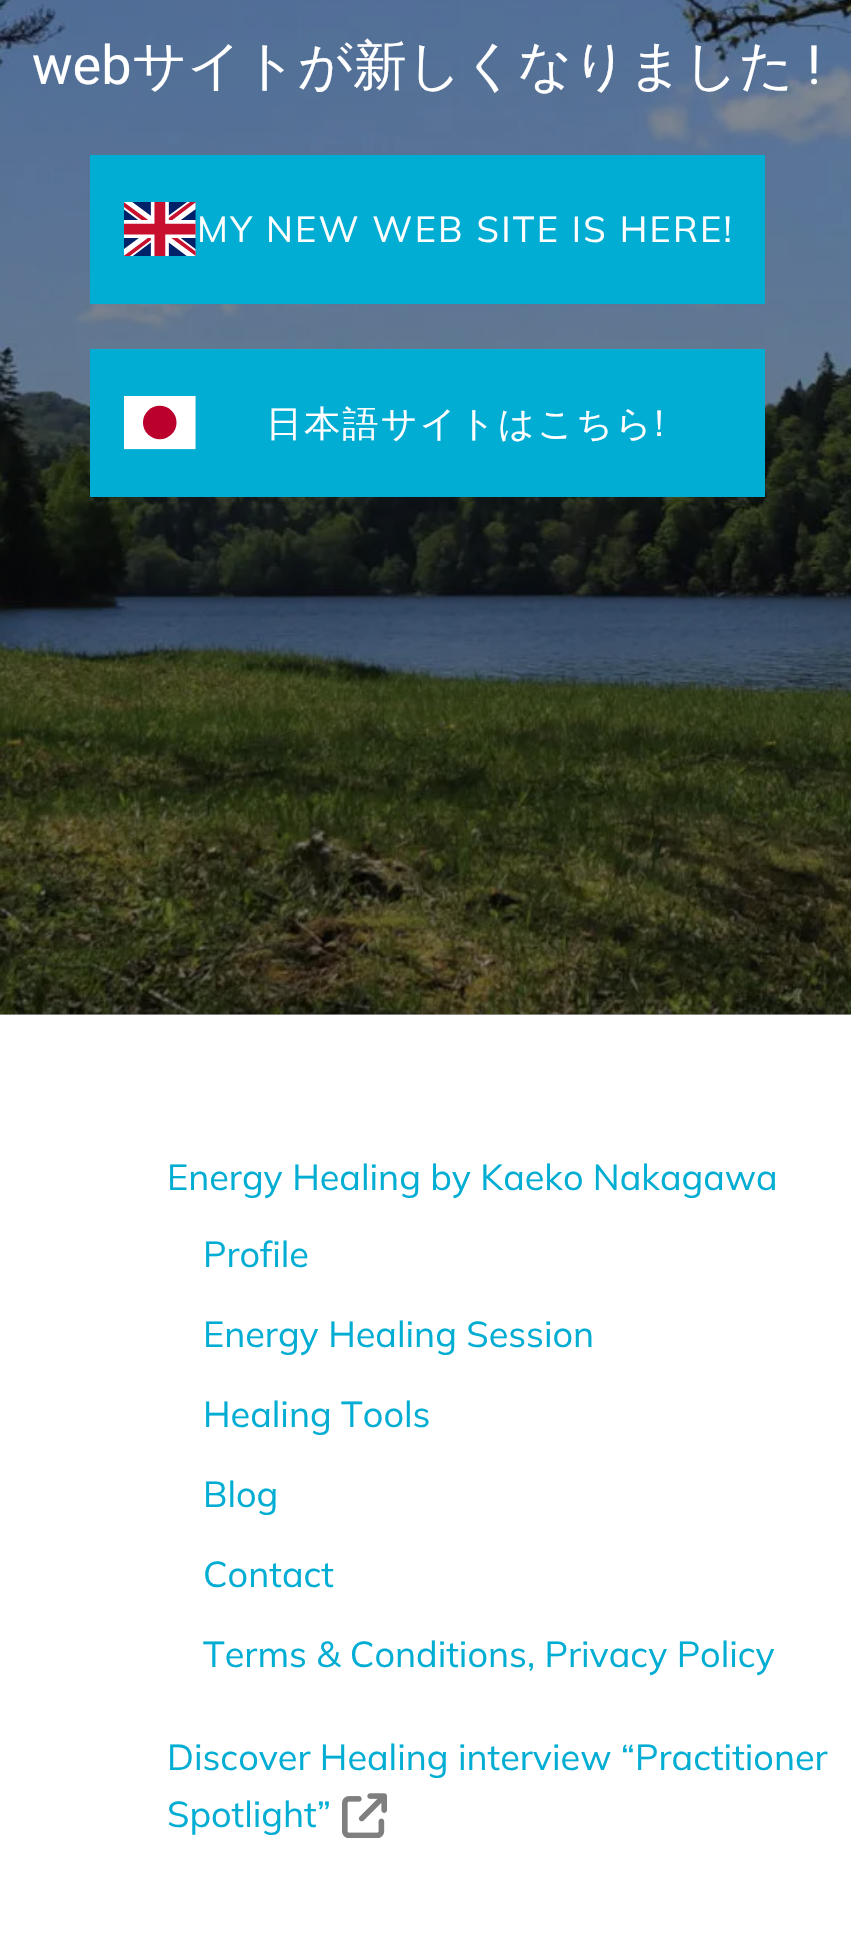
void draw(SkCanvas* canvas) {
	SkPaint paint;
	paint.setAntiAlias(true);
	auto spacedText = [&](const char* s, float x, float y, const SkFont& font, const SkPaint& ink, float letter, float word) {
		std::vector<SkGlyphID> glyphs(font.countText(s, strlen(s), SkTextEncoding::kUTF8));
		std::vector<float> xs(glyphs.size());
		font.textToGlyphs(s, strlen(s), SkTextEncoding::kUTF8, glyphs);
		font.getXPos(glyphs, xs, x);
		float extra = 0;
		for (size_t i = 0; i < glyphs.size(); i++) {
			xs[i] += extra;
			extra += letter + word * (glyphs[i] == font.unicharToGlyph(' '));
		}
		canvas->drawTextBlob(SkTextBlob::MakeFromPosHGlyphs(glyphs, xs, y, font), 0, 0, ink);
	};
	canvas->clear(0xffffffff);
	paint.setColor(0xff999999);
	canvas->drawRect(SkRect::MakeXYWH(0, 1014, 851, 1), paint);
	canvas->drawImageRect(SkImages::DeferredFromEncodedData(SkData::MakeFromFileName("img1.png")), SkRect::MakeXYWH(0, 0, 851, 1015), SkSamplingOptions());
	SkFont f1(fontMgr->matchFamilyStyle("Roboto", SkFontStyle::Normal()), 54);
	f1.setSubpixel(true);
	paint.setColor(0xffffffff);
	canvas->drawString("web", 32, 84, f1, paint);
	SkFont f2(fontMgr->matchFamilyStyle("WenQuanYi Zen Hei", SkFontStyle(500, SkFontStyle::kNormal_Width, SkFontStyle::kUpright_Slant)), 54);
	f2.setSubpixel(true);
	canvas->drawString("サイトが新しくなりました", 132, 84, f2, paint);
	canvas->drawString("!", 807, 84, f1, paint);
	paint.setColor(0xff01add3);
	canvas->drawRect(SkRect::MakeXYWH(90, 155, 675, 149), paint);
	canvas->drawImageRect(SkImages::DeferredFromEncodedData(SkData::MakeFromFileName("img2.png")), SkRect::MakeXYWH(124, 202, 72, 54), SkSamplingOptions());
	SkFont f3(fontMgr->matchFamilyStyle("Mulish", SkFontStyle::Normal()), 36);
	f3.setSubpixel(true);
	paint.setColor(0xffffffff);
	spacedText("MY NEW WEB SITE IS HERE!", 197, 242, f3, paint, 2.25, 0);
	paint.setColor(0xff01add3);
	canvas->drawRect(SkRect::MakeXYWH(90, 349, 675, 148), paint);
	canvas->drawImageRect(SkImages::DeferredFromEncodedData(SkData::MakeFromFileName("img3.png")), SkRect::MakeXYWH(124, 396, 72, 54), SkSamplingOptions());
	SkFont f4(fontMgr->matchFamilyStyle("WenQuanYi Zen Hei", SkFontStyle(500, SkFontStyle::kNormal_Width, SkFontStyle::kUpright_Slant)), 36);
	f4.setSubpixel(true);
	paint.setColor(0xffffffff);
	spacedText("日本語サイトはこちら", 266, 436, f4, paint, 2.25, 0);
	spacedText("!", 655, 436, f3, paint, 2.25, 0);
	paint.setColor(0xff01add3);
	canvas->drawString("Energy Healing by Kaeko Nakagawa", 167, 1190, f3, paint);
	canvas->drawString("Profile", 203, 1267, f3, paint);
	canvas->drawString("Energy Healing Session", 203, 1347, f3, paint);
	canvas->drawString("Healing Tools", 203, 1427, f3, paint);
	canvas->drawString("Blog", 203, 1507, f3, paint);
	canvas->drawString("Contact", 203, 1587, f3, paint);
	canvas->drawString("Terms & Conditions, Privacy Policy", 203, 1667, f3, paint);
	canvas->drawString("Discover Healing interview “Practitioner", 167, 1770, f3, paint);
	canvas->drawString("Spotlight”", 167, 1827, f3, paint);
	canvas->drawImageRect(SkImages::DeferredFromEncodedData(SkData::MakeFromFileName("img4.png")), SkRect::MakeXYWH(342, 1793, 45, 45), SkSamplingOptions());
}
